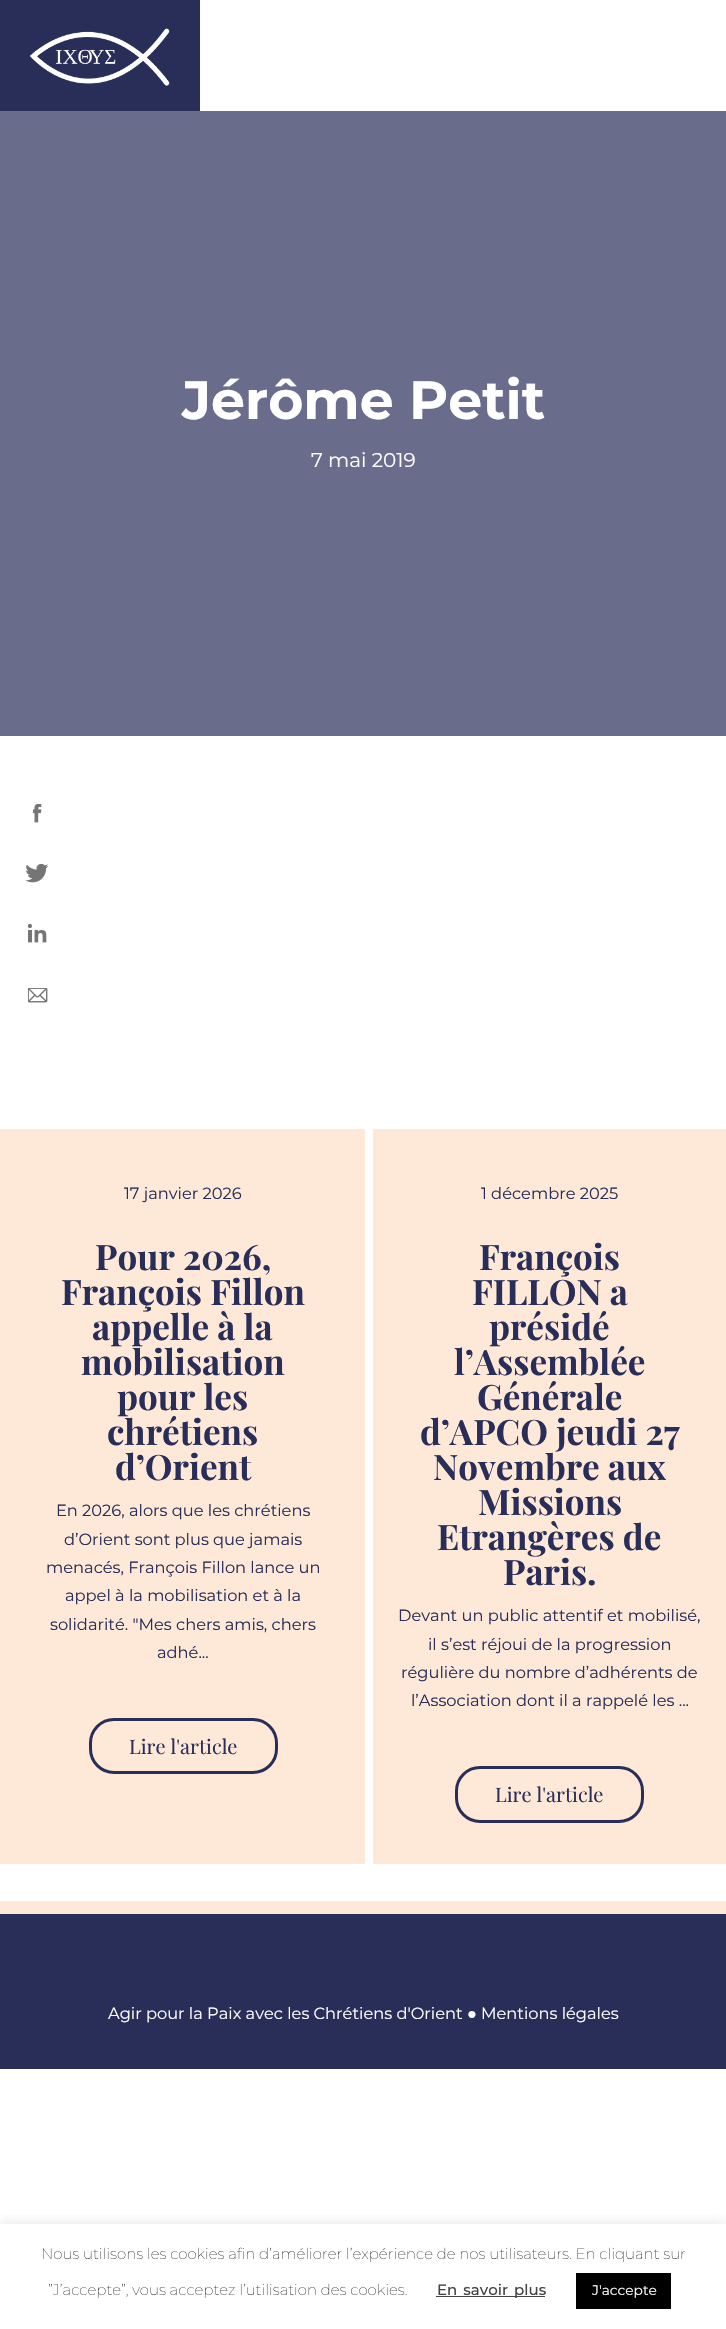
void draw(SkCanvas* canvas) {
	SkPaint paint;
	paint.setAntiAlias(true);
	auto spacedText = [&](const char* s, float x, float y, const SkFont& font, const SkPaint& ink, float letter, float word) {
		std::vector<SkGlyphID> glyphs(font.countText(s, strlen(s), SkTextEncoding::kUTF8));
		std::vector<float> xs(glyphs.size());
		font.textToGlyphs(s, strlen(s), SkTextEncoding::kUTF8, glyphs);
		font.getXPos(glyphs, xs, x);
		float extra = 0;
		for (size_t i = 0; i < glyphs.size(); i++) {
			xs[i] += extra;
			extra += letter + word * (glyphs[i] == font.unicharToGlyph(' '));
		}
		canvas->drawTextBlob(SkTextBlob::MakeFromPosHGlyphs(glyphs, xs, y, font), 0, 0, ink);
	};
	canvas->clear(0xffffffff);
	paint.setColor(0xff292e59);
	canvas->drawRect(SkRect::MakeXYWH(0, 0, 200, 111), paint);
	canvas->drawImageRect(SkImages::DeferredFromEncodedData(SkData::MakeFromFileName("img1.png")), SkRect::MakeXYWH(30, 28, 140, 58), SkSamplingOptions());
	paint.setColor(0xff696d8b);
	canvas->drawRect(SkRect::MakeXYWH(0, 111, 726, 625), paint);
	SkFont f1(fontMgr->matchFamilyStyle("Montserrat", SkFontStyle::Bold()), 53.75);
	f1.setSubpixel(true);
	paint.setColor(0xffffffff);
	canvas->drawString("Jérôme Petit", 182, 419, f1, paint);
	SkFont f2(fontMgr->matchFamilyStyle("Montserrat", SkFontStyle::Normal()), 20);
	f2.setSubpixel(true);
	canvas->drawString("7 mai 2019", 311, 467, f2, paint);
	canvas->drawImageRect(SkImages::DeferredFromEncodedData(SkData::MakeFromFileName("img2.png")), SkRect::MakeXYWH(33, 804, 9, 19), SkSamplingOptions());
	canvas->drawImageRect(SkImages::DeferredFromEncodedData(SkData::MakeFromFileName("img3.png")), SkRect::MakeXYWH(25, 864, 24, 19), SkSamplingOptions());
	canvas->drawImageRect(SkImages::DeferredFromEncodedData(SkData::MakeFromFileName("img4.png")), SkRect::MakeXYWH(28, 924, 19, 19), SkSamplingOptions());
	canvas->drawImageRect(SkImages::DeferredFromEncodedData(SkData::MakeFromFileName("img5.png")), SkRect::MakeXYWH(28, 988, 20, 15), SkSamplingOptions());
	paint.setColor(0xfffee8d7);
	canvas->drawRect(SkRect::MakeXYWH(0, 1129, 365, 735), paint);
	SkFont f3(fontMgr->matchFamilyStyle("Montserrat", SkFontStyle::Normal()), 16.25);
	f3.setSubpixel(true);
	paint.setColor(0xff292e59);
	canvas->drawString("17 janvier 2026", 124, 1199, f3, paint);
	SkFont f4(fontMgr->matchFamilyStyle("Playfair Display", SkFontStyle::Bold()), 35);
	f4.setSubpixel(true);
	canvas->drawString("Pour 2026,", 95, 1270, f4, paint);
	canvas->drawString("François Fillon", 61, 1305, f4, paint);
	canvas->drawString("appelle à la", 92, 1340, f4, paint);
	canvas->drawString("mobilisation", 81, 1375, f4, paint);
	canvas->drawString("pour les", 117, 1410, f4, paint);
	canvas->drawString("chrétiens", 107, 1445, f4, paint);
	canvas->drawString("d’Orient", 115, 1480, f4, paint);
	canvas->drawString("En 2026, alors que les chrétiens", 56, 1516, f3, paint);
	canvas->drawString("d’Orient sont plus que jamais", 64, 1545, f3, paint);
	canvas->drawString("menacés, François Fillon lance un", 46, 1573, f3, paint);
	canvas->drawString("appel à la mobilisation et à la", 65, 1601, f3, paint);
	canvas->drawString("solidarité. \"Mes chers amis, chers", 50, 1630, f3, paint);
	canvas->drawString("adhé...", 157, 1658, f3, paint);
	paint.setStroke(true);
	paint.setStrokeWidth(3);
	canvas->drawRoundRect(SkRect::MakeXYWH(90.5, 1719.5, 186, 53), 23.5, 23.5, paint);
	SkFont f5(fontMgr->matchFamilyStyle("Playfair Display", SkFontStyle::Normal()), 20);
	f5.setSubpixel(true);
	paint.setStroke(false);
	canvas->drawString("Lire l'article", 129, 1754, f5, paint);
	paint.setColor(0xfffee8d7);
	canvas->drawRect(SkRect::MakeXYWH(373, 1129, 353, 735), paint);
	paint.setColor(0xff292e59);
	canvas->drawString("1 décembre 2025", 481, 1199, f3, paint);
	canvas->drawString("François", 479, 1270, f4, paint);
	canvas->drawString("FILLON a", 472, 1305, f4, paint);
	canvas->drawString("présidé", 489, 1340, f4, paint);
	canvas->drawString("l’Assemblée", 454, 1375, f4, paint);
	canvas->drawString("Générale", 477, 1410, f4, paint);
	canvas->drawString("d’APCO jeudi 27", 420, 1445, f4, paint);
	canvas->drawString("Novembre aux", 433, 1480, f4, paint);
	canvas->drawString("Missions", 478, 1515, f4, paint);
	canvas->drawString("Etrangères de", 437, 1550, f4, paint);
	canvas->drawString("Paris.", 503, 1585, f4, paint);
	canvas->drawString("Devant un public attentif et mobilisé,", 398, 1621, f3, paint);
	canvas->drawString("il s’est réjoui de la progression", 428, 1650, f3, paint);
	canvas->drawString("régulière du nombre d’adhérents de", 401, 1678, f3, paint);
	canvas->drawString("l’Association dont il a rappelé les ...", 411, 1706, f3, paint);
	paint.setStroke(true);
	canvas->drawRoundRect(SkRect::MakeXYWH(456.5, 1767.5, 186, 54), 23.5, 23.5, paint);
	paint.setStroke(false);
	canvas->drawString("Lire l'article", 495, 1802, f5, paint);
	canvas->drawRect(SkRect::MakeXYWH(0, 1914, 726, 155), paint);
	paint.setColor(0xfffee8d7);
	canvas->drawRect(SkRect::MakeXYWH(0, 1901, 726, 13), paint);
	paint.setColor(0xffffffff);
	canvas->drawString("Agir pour la Paix avec les Chrétiens d'Orient", 108, 2019, f3, paint);
	SkFont f6(fontMgr->matchFamilyStyle("Liberation Serif", SkFontStyle::Normal()), 16.25);
	f6.setSubpixel(true);
	canvas->drawString("●", 467, 2019, f6, paint);
	canvas->drawString("Mentions légales", 481, 2019, f3, paint);
	canvas->save();
	canvas->clipRect(SkRect::MakeXYWH(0, 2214, 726, 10));
	paint.setColor(0x4dacabab);
	paint.setMaskFilter(SkMaskFilter::MakeBlur(kNormal_SkBlurStyle, 6));
	canvas->drawRect(SkRect::MakeXYWH(0, 2223, 726, 106), paint);
	paint.setMaskFilter(nullptr);
	canvas->restore();
	SkFont f7(fontMgr->matchFamilyStyle("Montserrat", SkFontStyle(100, SkFontStyle::kNormal_Width, SkFontStyle::kUpright_Slant)), 15);
	f7.setSubpixel(true);
	paint.setColor(0xff000000);
	canvas->drawString("Nous utilisons les cookies afin d’améliorer l’expérience de nos utilisateurs. En cliquant sur", 41, 2259, f7, paint);
	canvas->drawString("”J’accepte”, vous acceptez l’utilisation des cookies.", 48, 2295, f7, paint);
	paint.setColor(0xff444444);
	canvas->drawRect(SkRect::MakeXYWH(436, 2296, 109, 1), paint);
	SkFont f8(fontMgr->matchFamilyStyle("Montserrat", SkFontStyle(500, SkFontStyle::kNormal_Width, SkFontStyle::kUpright_Slant)), 15);
	f8.setSubpixel(true);
	spacedText("En savoir plus", 437, 2295, f8, paint, 0, 2);
	paint.setColor(0xff000000);
	canvas->drawRect(SkRect::MakeXYWH(576, 2273, 95, 36), paint);
	SkFont f9(fontMgr->matchFamilyStyle("Montserrat", SkFontStyle::Normal()), 13.75);
	f9.setSubpixel(true);
	paint.setColor(0xffffffff);
	canvas->drawString("J'accepte", 592, 2295, f9, paint);
}
